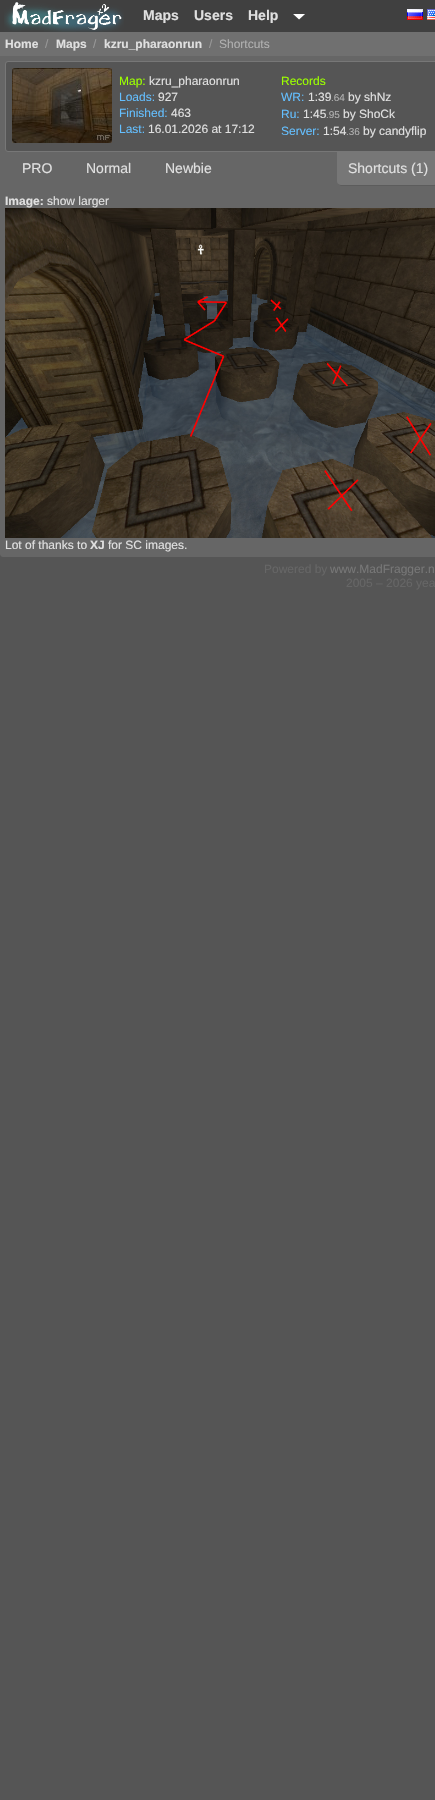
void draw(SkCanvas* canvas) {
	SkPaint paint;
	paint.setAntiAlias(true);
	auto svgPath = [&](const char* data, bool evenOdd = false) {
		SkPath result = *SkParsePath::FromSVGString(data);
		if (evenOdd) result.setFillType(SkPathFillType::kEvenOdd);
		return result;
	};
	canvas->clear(0xff555555);
	paint.setColor(0xff404040);
	canvas->drawRect(SkRect::MakeXYWH(0, 0, 435, 32), paint);
	canvas->drawImageRect(SkImages::DeferredFromEncodedData(SkData::MakeFromFileName("img1.png")), SkRect::MakeXYWH(4, 2, 120, 30), SkSamplingOptions());
	SkFont f1(fontMgr->matchFamilyStyle("Liberation Sans", SkFontStyle::Bold()), 14);
	f1.setSubpixel(true);
	paint.setColor(0xffe0e0e0);
	canvas->drawString("Maps", 143, 20, f1, paint);
	canvas->drawString("Users", 194, 20, f1, paint);
	canvas->drawString("Help", 248, 20, f1, paint);
	canvas->drawImageRect(SkImages::DeferredFromEncodedData(SkData::MakeFromFileName("img2.png")), SkRect::MakeXYWH(293, 14, 12, 6), SkSamplingOptions());
	canvas->drawImageRect(SkImages::DeferredFromEncodedData(SkData::MakeFromFileName("img3.png")), SkRect::MakeXYWH(407, 9, 16, 11), SkSamplingOptions());
	canvas->drawImageRect(SkImages::DeferredFromEncodedData(SkData::MakeFromFileName("img4.png")), SkRect::MakeXYWH(427, 9, 8, 11), SkSamplingOptions());
	paint.setColor(0xff707070);
	canvas->drawRect(SkRect::MakeXYWH(0, 32, 435, 24), paint);
	SkFont f2(fontMgr->matchFamilyStyle("Liberation Sans", SkFontStyle::Bold()), 12);
	f2.setSubpixel(true);
	paint.setColor(0xffe0e0e0);
	canvas->drawString("Home", 5, 48, f2, paint);
	SkFont f3(fontMgr->matchFamilyStyle("Liberation Sans", SkFontStyle::Normal()), 12);
	f3.setSubpixel(true);
	paint.setColor(0xff999999);
	canvas->drawString("/", 45, 48, f3, paint);
	paint.setColor(0xffe0e0e0);
	canvas->drawString("Maps", 56, 48, f2, paint);
	paint.setColor(0xff999999);
	canvas->drawString("/", 93, 48, f3, paint);
	paint.setColor(0xffe0e0e0);
	canvas->drawString("kzru_pharaonrun", 104, 48, f2, paint);
	paint.setColor(0xff999999);
	canvas->drawString("/", 209, 48, f3, paint);
	paint.setColor(0xffb0b0b0);
	canvas->drawString("Shortcuts", 219, 48, f3, paint);
	paint.setColor(0xff666666);
	canvas->drawPath(svgPath("M0 56H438V554C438 555.5 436.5 557 435 557H3C1.5 557 0 555.5 0 554Z"), paint);
	paint.setColor(0xff555555);
	canvas->drawRoundRect(SkRect::MakeXYWH(5.5, 61.5, 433, 90), 2.5, 2.5, paint);
	paint.setStroke(true);
	paint.setStrokeWidth(1);
	paint.setColor(0xff777777);
	canvas->drawRoundRect(SkRect::MakeXYWH(5.5, 61.5, 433, 90), 2.5, 2.5, paint);
	canvas->drawImageRect(SkImages::DeferredFromEncodedData(SkData::MakeFromFileName("img5.png")), SkRect::MakeXYWH(12, 68, 100, 75), SkSamplingOptions());
	paint.setStroke(false);
	paint.setColor(0xff9cff00);
	canvas->drawString("Map:", 119, 85, f3, paint);
	paint.setColor(0xffe0e0e0);
	canvas->drawString("kzru_pharaonrun", 149, 85, f3, paint);
	paint.setColor(0xff64bfff);
	canvas->drawString("Loads:", 119, 101, f3, paint);
	paint.setColor(0xffe0e0e0);
	canvas->drawString("927", 158, 101, f3, paint);
	paint.setColor(0xff64bfff);
	canvas->drawString("Finished:", 119, 117, f3, paint);
	paint.setColor(0xffe0e0e0);
	canvas->drawString("463", 171, 117, f3, paint);
	paint.setColor(0xff64bfff);
	canvas->drawString("Last:", 119, 133, f3, paint);
	paint.setColor(0xffe0e0e0);
	canvas->drawString("16.01.2026 at 17:12", 148, 133, f3, paint);
	paint.setColor(0xff9cff00);
	canvas->drawString("Records", 281, 85, f3, paint);
	paint.setColor(0xff64bfff);
	canvas->drawString("WR:", 281, 101, f3, paint);
	paint.setColor(0xffe0e0e0);
	canvas->drawString("1:39", 308, 101, f3, paint);
	SkFont f4(fontMgr->matchFamilyStyle("Liberation Sans", SkFontStyle::Normal()), 10);
	f4.setSubpixel(true);
	paint.setColor(0xffb0b0b0);
	canvas->drawString(".64", 331, 101, f4, paint);
	paint.setColor(0xffe0e0e0);
	canvas->drawString("by shNz", 348, 101, f3, paint);
	paint.setColor(0xff64bfff);
	canvas->drawString("Ru:", 281, 118, f3, paint);
	paint.setColor(0xffe0e0e0);
	canvas->drawString("1:45", 303, 118, f3, paint);
	paint.setColor(0xffb0b0b0);
	canvas->drawString(".95", 326, 118, f4, paint);
	paint.setColor(0xffe0e0e0);
	canvas->drawString("by ShoCk", 343, 118, f3, paint);
	paint.setColor(0xff64bfff);
	canvas->drawString("Server:", 281, 135, f3, paint);
	paint.setColor(0xffe0e0e0);
	canvas->drawString("1:54", 323, 135, f3, paint);
	paint.setColor(0xffb0b0b0);
	canvas->drawString(".36", 346, 135, f4, paint);
	paint.setColor(0xffe0e0e0);
	canvas->drawString("by candyflip", 363, 135, f3, paint);
	SkFont f5(fontMgr->matchFamilyStyle("Liberation Sans", SkFontStyle::Normal()), 14);
	f5.setSubpixel(true);
	canvas->drawString("PRO", 22, 173, f5, paint);
	canvas->drawString("Normal", 86, 173, f5, paint);
	canvas->drawString("Newbie", 165, 173, f5, paint);
	canvas->drawImageRect(SkImages::DeferredFromEncodedData(SkData::MakeFromFileName("img6.png")), SkRect::MakeXYWH(337, 152, 5, 34), SkSamplingOptions());
	paint.setColor(0xff777777);
	canvas->drawRect(SkRect::MakeXYWH(342, 152, 92, 33), paint);
	paint.setColor(0xff5c5c5c);
	canvas->drawRect(SkRect::MakeXYWH(342, 185, 92, 1), paint);
	paint.setColor(0xffe0e0e0);
	canvas->drawString("Shortcuts (1)", 348, 173, f5, paint);
	canvas->drawImageRect(SkImages::DeferredFromEncodedData(SkData::MakeFromFileName("img7.png")), SkRect::MakeXYWH(434, 152, 1, 34), SkSamplingOptions());
	canvas->drawString("Image:", 5, 205, f2, paint);
	canvas->drawString("show larger", 47, 205, f3, paint);
	canvas->drawImageRect(SkImages::DeferredFromEncodedData(SkData::MakeFromFileName("img8.png")), SkRect::MakeXYWH(5, 208, 430, 330), SkSamplingOptions());
	canvas->drawString("Lot of thanks to", 5, 549, f3, paint);
	canvas->drawString("XJ", 90, 549, f2, paint);
	canvas->drawString("for SC images.", 108, 549, f3, paint);
	paint.setColor(0xff666666);
	canvas->drawString("Powered by", 264, 573, f3, paint);
	paint.setColor(0xff777777);
	canvas->drawString("www.MadFragger.n", 330, 573, f3, paint);
	paint.setColor(0xff666666);
	canvas->drawString("2005 – 2026 yea", 346, 587, f3, paint);
}
